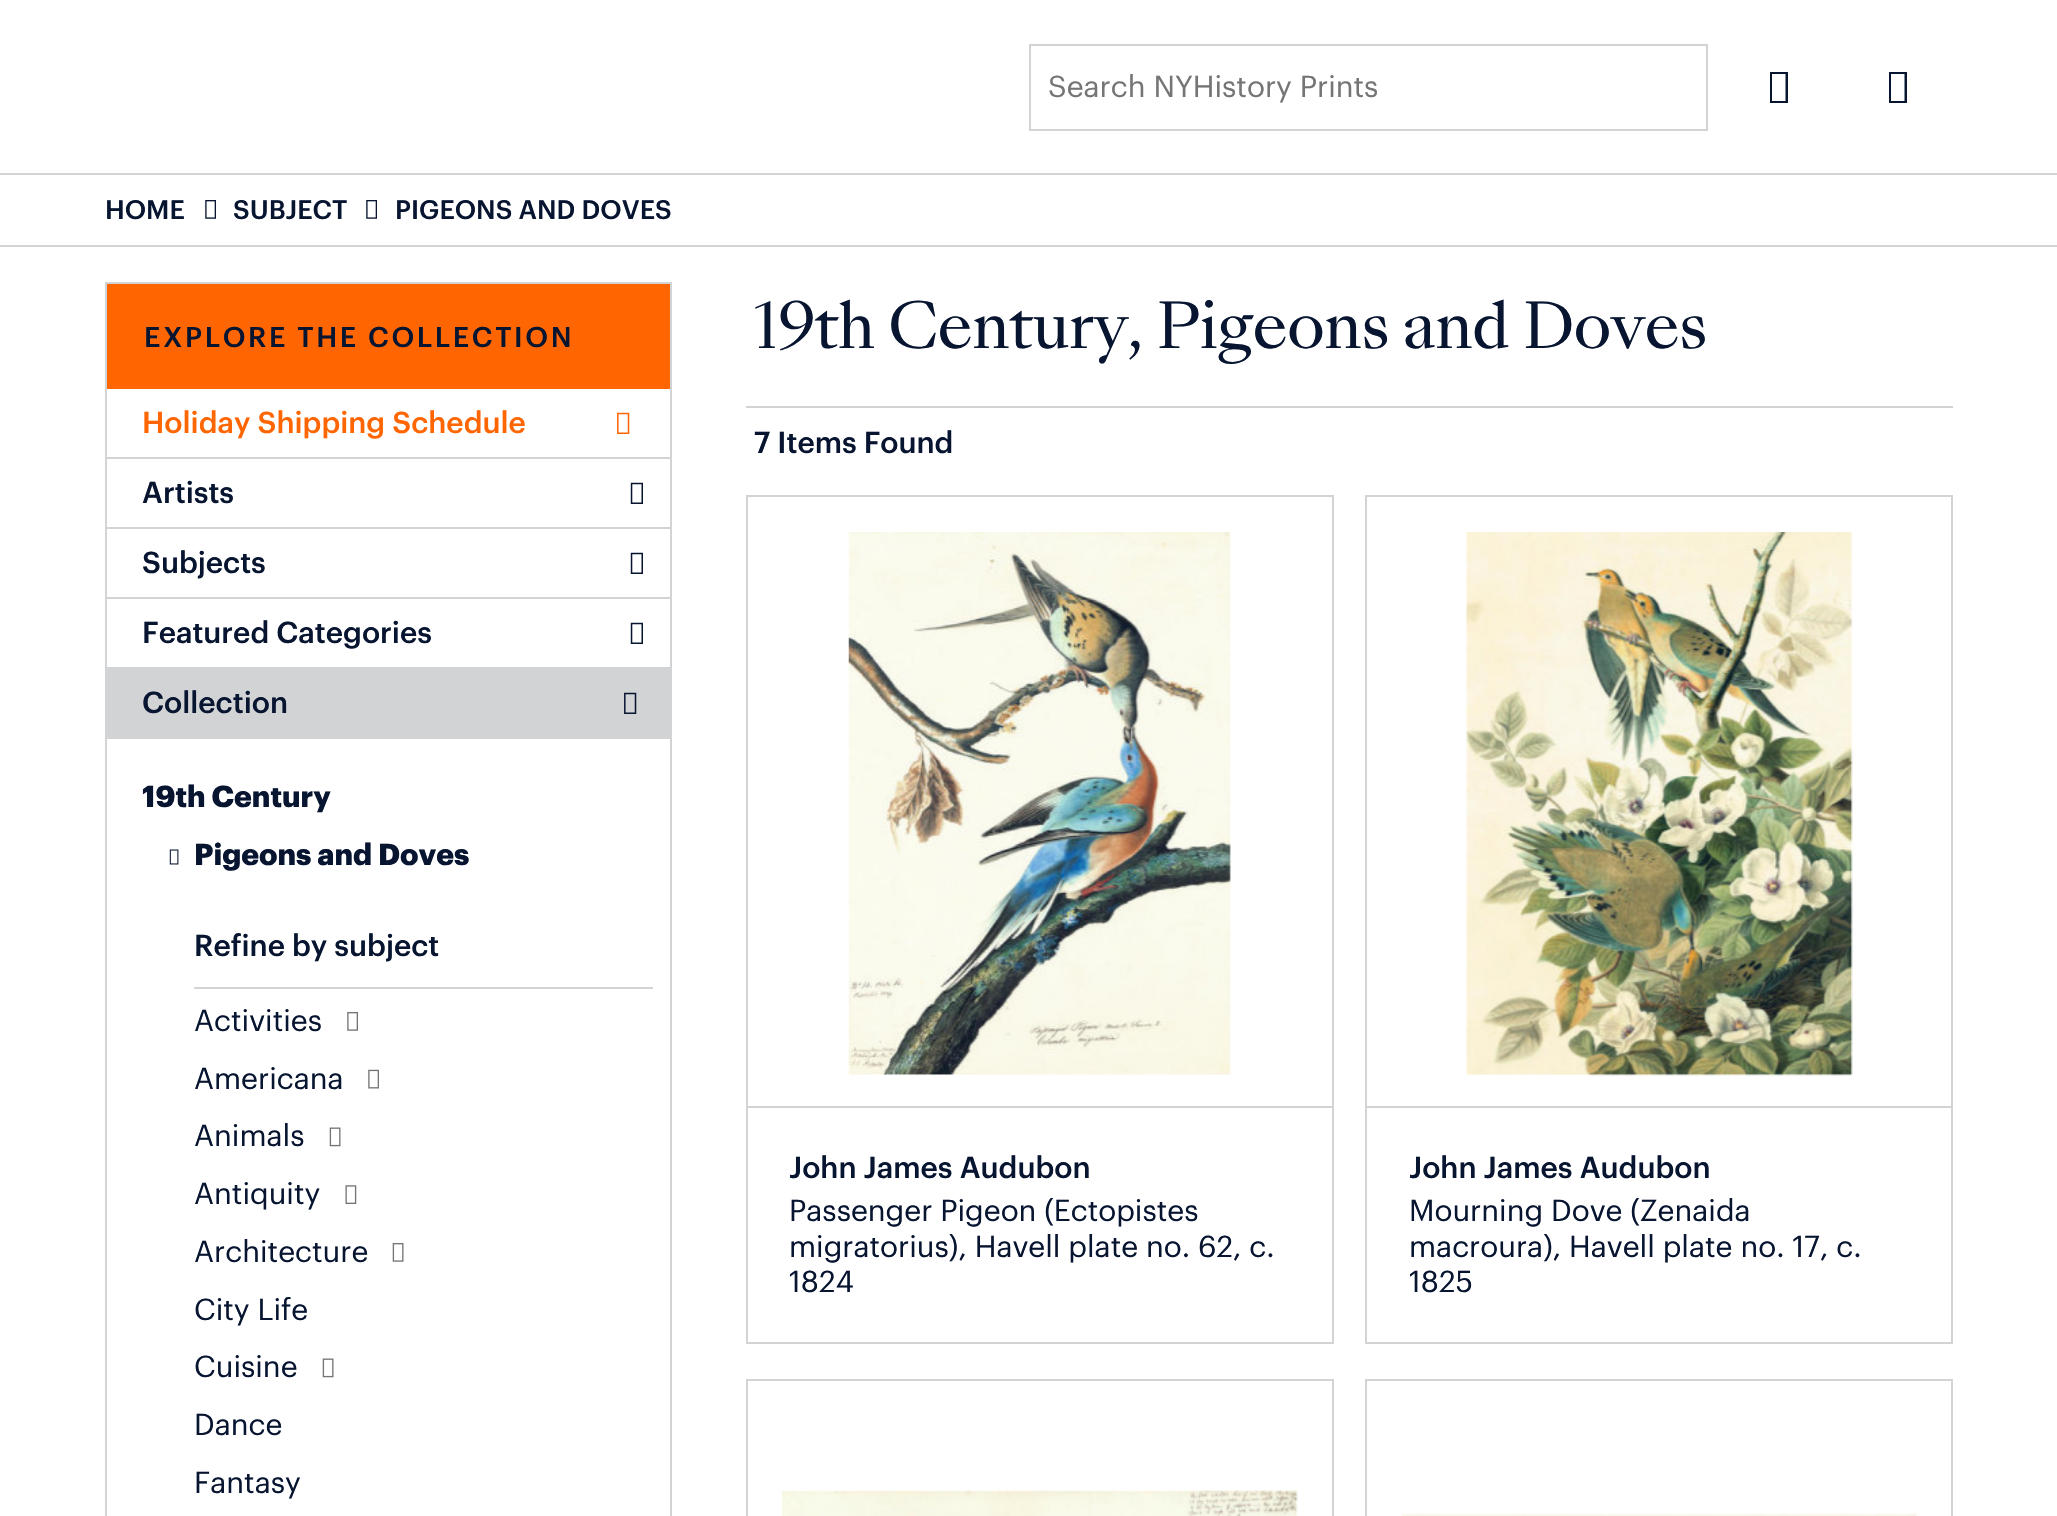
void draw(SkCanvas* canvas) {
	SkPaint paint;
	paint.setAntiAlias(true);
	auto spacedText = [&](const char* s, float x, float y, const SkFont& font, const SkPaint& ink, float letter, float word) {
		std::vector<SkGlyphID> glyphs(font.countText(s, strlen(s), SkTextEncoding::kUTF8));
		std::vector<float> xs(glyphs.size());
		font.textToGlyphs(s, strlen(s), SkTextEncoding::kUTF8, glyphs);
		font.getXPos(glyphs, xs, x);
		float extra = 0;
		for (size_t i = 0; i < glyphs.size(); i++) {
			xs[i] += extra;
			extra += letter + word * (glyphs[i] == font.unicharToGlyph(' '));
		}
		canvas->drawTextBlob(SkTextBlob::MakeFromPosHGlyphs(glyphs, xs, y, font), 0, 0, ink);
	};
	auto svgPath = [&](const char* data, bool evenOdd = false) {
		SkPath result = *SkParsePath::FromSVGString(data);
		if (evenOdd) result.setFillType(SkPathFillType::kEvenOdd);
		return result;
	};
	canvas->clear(0xffffffff);
	paint.setColor(0xffd1d3d5);
	canvas->drawRect(SkRect::MakeXYWH(0, 173, 2057, 2), paint);
	paint.setStroke(true);
	paint.setStrokeWidth(2);
	canvas->drawRect(SkRect::MakeXYWH(1030, 45, 677, 85), paint);
	SkFont f1(fontMgr->matchFamilyStyle("Graphik", SkFontStyle::Normal()), 29.75);
	f1.setSubpixel(true);
	paint.setStroke(false);
	paint.setColor(0xff757575);
	canvas->drawString("Search NYHistory Prints", 1048, 97, f1, paint);
	paint.setColor(0xff071531);
	canvas->drawPath(svgPath("M1770 103V72H1788V103ZM1772 101H1785.5V74H1772Z"), paint);
	canvas->drawPath(svgPath("M1889 103V72H1907V103ZM1891 101H1904.5V74H1891Z"), paint);
	paint.setColor(0xffd1d3d5);
	canvas->drawRect(SkRect::MakeXYWH(0, 245, 2057, 2), paint);
	SkFont f2(fontMgr->matchFamilyStyle("Graphik", SkFontStyle(500, SkFontStyle::kNormal_Width, SkFontStyle::kUpright_Slant)), 26.25);
	f2.setSubpixel(true);
	paint.setColor(0xff071531);
	canvas->drawString("HOME", 105, 219, f2, paint);
	canvas->drawImageRect(SkImages::DeferredFromEncodedData(SkData::MakeFromFileName("img1.png")), SkRect::MakeXYWH(205, 200, 11, 19), SkSamplingOptions());
	canvas->drawString("SUBJECT", 233, 219, f2, paint);
	canvas->drawImageRect(SkImages::DeferredFromEncodedData(SkData::MakeFromFileName("img1.png")), SkRect::MakeXYWH(366, 200, 11, 19), SkSamplingOptions());
	canvas->drawString("PIGEONS AND DOVES", 395, 219, f2, paint);
	paint.setStroke(true);
	paint.setColor(0xffd1d3d5);
	canvas->drawRect(SkRect::MakeXYWH(106, 283, 565, 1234), paint);
	paint.setStroke(false);
	paint.setColor(0xffff6602);
	canvas->drawRect(SkRect::MakeXYWH(107, 284, 563, 105), paint);
	SkFont f3(fontMgr->matchFamilyStyle("Graphik", SkFontStyle(500, SkFontStyle::kNormal_Width, SkFontStyle::kUpright_Slant)), 28);
	f3.setSubpixel(true);
	paint.setColor(0xff071531);
	spacedText("EXPLORE THE COLLECTION", 144, 347, f3, paint, 2.6, 0);
	paint.setColor(0xffd1d3d5);
	canvas->drawRect(SkRect::MakeXYWH(107, 457, 563, 2), paint);
	SkFont f4(fontMgr->matchFamilyStyle("Graphik", SkFontStyle(500, SkFontStyle::kNormal_Width, SkFontStyle::kUpright_Slant)), 29.75);
	f4.setSubpixel(true);
	paint.setColor(0xffff6602);
	canvas->drawString("Holiday Shipping Schedule", 142, 433, f4, paint);
	canvas->drawImageRect(SkImages::DeferredFromEncodedData(SkData::MakeFromFileName("img2.png")), SkRect::MakeXYWH(617, 412, 13, 22), SkSamplingOptions());
	paint.setColor(0xffd1d3d5);
	canvas->drawRect(SkRect::MakeXYWH(107, 527, 563, 2), paint);
	paint.setColor(0xff071531);
	canvas->drawString("Artists", 142, 503, f4, paint);
	canvas->drawImageRect(SkImages::DeferredFromEncodedData(SkData::MakeFromFileName("img3.png")), SkRect::MakeXYWH(630, 482, 13, 22), SkSamplingOptions());
	paint.setColor(0xffd1d3d5);
	canvas->drawRect(SkRect::MakeXYWH(107, 597, 563, 2), paint);
	paint.setColor(0xff071531);
	canvas->drawString("Subjects", 142, 573, f4, paint);
	canvas->drawImageRect(SkImages::DeferredFromEncodedData(SkData::MakeFromFileName("img3.png")), SkRect::MakeXYWH(630, 552, 13, 22), SkSamplingOptions());
	paint.setColor(0xffd1d3d5);
	canvas->drawRect(SkRect::MakeXYWH(107, 667, 563, 72), paint);
	paint.setColor(0xff071531);
	canvas->drawString("Featured Categories", 142, 643, f4, paint);
	canvas->drawImageRect(SkImages::DeferredFromEncodedData(SkData::MakeFromFileName("img3.png")), SkRect::MakeXYWH(630, 622, 13, 22), SkSamplingOptions());
	canvas->drawString("Collection", 142, 713, f4, paint);
	canvas->drawImageRect(SkImages::DeferredFromEncodedData(SkData::MakeFromFileName("img4.png")), SkRect::MakeXYWH(624, 692, 13, 22), SkSamplingOptions());
	SkFont f5(fontMgr->matchFamilyStyle("Graphik", SkFontStyle::Bold()), 29.75);
	f5.setSubpixel(true);
	canvas->drawString("19th Century", 142, 807, f5, paint);
	canvas->drawImageRect(SkImages::DeferredFromEncodedData(SkData::MakeFromFileName("img5.png")), SkRect::MakeXYWH(169, 849, 10, 16), SkSamplingOptions());
	canvas->drawString("Pigeons and Doves", 194, 865, f5, paint);
	paint.setColor(0xffd1d3d5);
	canvas->drawRect(SkRect::MakeXYWH(194, 987, 459, 2), paint);
	paint.setColor(0xff071531);
	canvas->drawString("Refine by subject", 194, 956, f4, paint);
	canvas->drawString("Activities", 194, 1031, f1, paint);
	canvas->drawImageRect(SkImages::DeferredFromEncodedData(SkData::MakeFromFileName("img6.png")), SkRect::MakeXYWH(347, 1012, 11, 19), SkSamplingOptions());
	canvas->drawString("Americana", 194, 1089, f1, paint);
	canvas->drawImageRect(SkImages::DeferredFromEncodedData(SkData::MakeFromFileName("img7.png")), SkRect::MakeXYWH(368, 1069, 11, 20), SkSamplingOptions());
	canvas->drawString("Animals", 194, 1146, f1, paint);
	canvas->drawImageRect(SkImages::DeferredFromEncodedData(SkData::MakeFromFileName("img8.png")), SkRect::MakeXYWH(329, 1127, 12, 20), SkSamplingOptions());
	canvas->drawString("Antiquity", 194, 1204, f1, paint);
	canvas->drawImageRect(SkImages::DeferredFromEncodedData(SkData::MakeFromFileName("img9.png")), SkRect::MakeXYWH(345, 1185, 12, 19), SkSamplingOptions());
	canvas->drawString("Architecture", 194, 1262, f1, paint);
	canvas->drawImageRect(SkImages::DeferredFromEncodedData(SkData::MakeFromFileName("img10.png")), SkRect::MakeXYWH(392, 1243, 12, 19), SkSamplingOptions());
	canvas->drawString("City Life", 194, 1320, f1, paint);
	canvas->drawString("Cuisine", 194, 1377, f1, paint);
	canvas->drawImageRect(SkImages::DeferredFromEncodedData(SkData::MakeFromFileName("img8.png")), SkRect::MakeXYWH(322, 1358, 12, 20), SkSamplingOptions());
	canvas->drawString("Dance", 194, 1435, f1, paint);
	canvas->drawString("Fantasy", 194, 1493, f1, paint);
	paint.setColor(0xffd1d3d5);
	canvas->drawRect(SkRect::MakeXYWH(746, 406, 1207, 2), paint);
	SkFont f6(fontMgr->matchFamilyStyle("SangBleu", SkFontStyle::Normal()), 61.25);
	f6.setSubpixel(true);
	paint.setColor(0xff071531);
	spacedText("19th Century, Pigeons and Doves", 754, 348, f6, paint, -0.9, 0);
	canvas->drawString("7 Items Found", 754, 453, f4, paint);
	paint.setStroke(true);
	paint.setColor(0xffd1d3d5);
	canvas->drawRect(SkRect::MakeXYWH(747, 496, 586, 611), paint);
	canvas->drawImageRect(SkImages::DeferredFromEncodedData(SkData::MakeFromFileName("img11.png")), SkRect::MakeXYWH(848, 532, 383, 543), SkSamplingOptions());
	paint.setStroke(false);
	canvas->drawRect(SkRect::MakeXYWH(1332, 1108, 2, 236), paint);
	canvas->drawRect(SkRect::MakeXYWH(746, 1342, 588, 2), paint);
	canvas->drawRect(SkRect::MakeXYWH(746, 1108, 2, 236), paint);
	paint.setColor(0xff071531);
	canvas->drawString("John James Audubon", 789, 1178, f4, paint);
	canvas->drawString("Passenger Pigeon (Ectopistes", 789, 1221, f1, paint);
	canvas->drawString("migratorius), Havell plate no. 62, c.", 789, 1257, f1, paint);
	canvas->drawString("1824", 789, 1292, f1, paint);
	paint.setStroke(true);
	paint.setColor(0xffd1d3d5);
	canvas->drawRect(SkRect::MakeXYWH(1366, 496, 586, 611), paint);
	canvas->drawImageRect(SkImages::DeferredFromEncodedData(SkData::MakeFromFileName("img12.png")), SkRect::MakeXYWH(1466, 532, 387, 544), SkSamplingOptions());
	paint.setStroke(false);
	canvas->drawRect(SkRect::MakeXYWH(1951, 1108, 2, 236), paint);
	canvas->drawRect(SkRect::MakeXYWH(1365, 1342, 588, 2), paint);
	canvas->drawRect(SkRect::MakeXYWH(1365, 1108, 2, 236), paint);
	paint.setColor(0xff071531);
	canvas->drawString("John James Audubon", 1409, 1178, f4, paint);
	canvas->drawString("Mourning Dove (Zenaida", 1409, 1221, f1, paint);
	canvas->drawString("macroura), Havell plate no. 17, c.", 1409, 1257, f1, paint);
	canvas->drawString("1825", 1409, 1292, f1, paint);
	paint.setStroke(true);
	paint.setColor(0xffd1d3d5);
	canvas->drawRect(SkRect::MakeXYWH(747, 1380, 586, 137), paint);
	canvas->drawImageRect(SkImages::DeferredFromEncodedData(SkData::MakeFromFileName("img13.png")), SkRect::MakeXYWH(782, 1490, 516, 26), SkSamplingOptions());
	canvas->drawRect(SkRect::MakeXYWH(1366, 1380, 586, 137), paint);
	canvas->drawImageRect(SkImages::DeferredFromEncodedData(SkData::MakeFromFileName("img14.png")), SkRect::MakeXYWH(1402, 1513, 515, 3), SkSamplingOptions());
}
